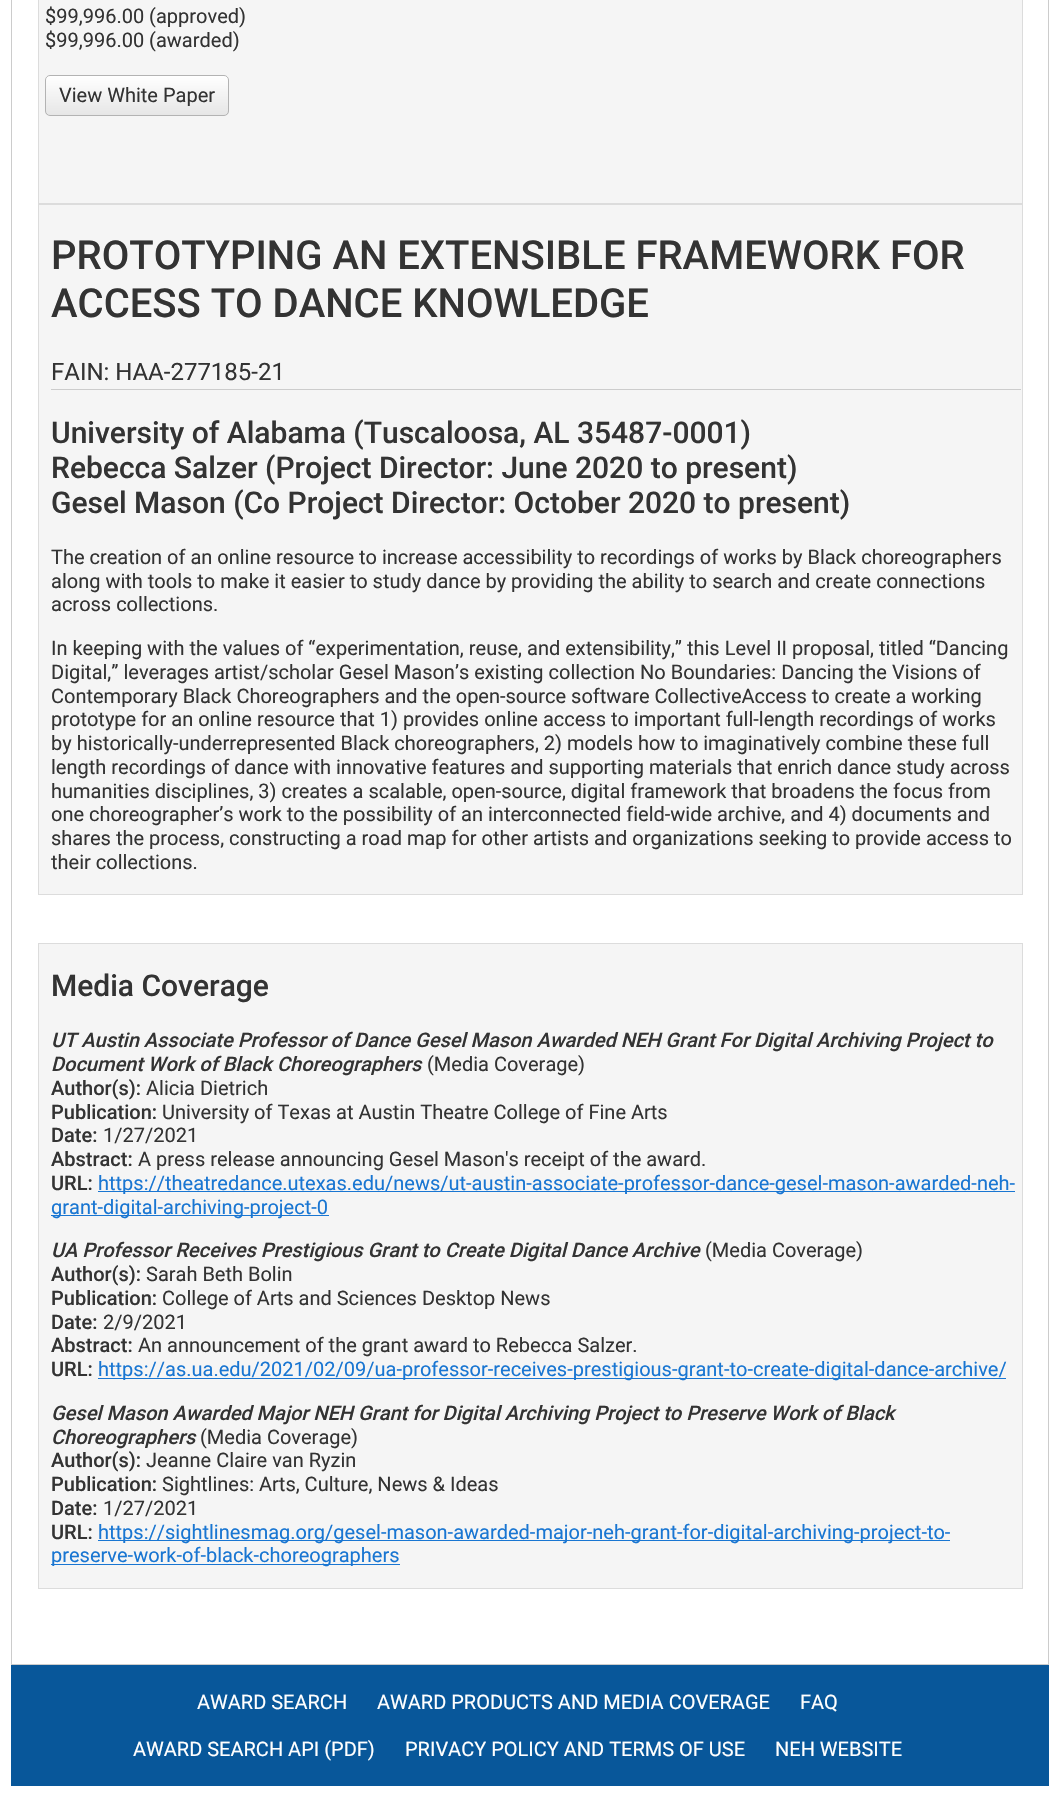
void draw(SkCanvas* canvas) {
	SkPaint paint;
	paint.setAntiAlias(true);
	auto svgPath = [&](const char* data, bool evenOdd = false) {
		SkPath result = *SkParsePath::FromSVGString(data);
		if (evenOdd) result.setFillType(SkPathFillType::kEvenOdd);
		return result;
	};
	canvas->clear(0xffffffff);
	paint.setColor(0xffcccccc);
	canvas->drawRect(SkRect::MakeXYWH(1048, 0, 1, 1665), paint);
	canvas->drawRect(SkRect::MakeXYWH(11, 1664, 1038, 1), paint);
	canvas->drawRect(SkRect::MakeXYWH(11, 0, 1, 1665), paint);
	paint.setColor(0xfff5f5f5);
	canvas->drawRect(SkRect::MakeXYWH(38.5, -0.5, 984, 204), paint);
	paint.setStroke(true);
	paint.setStrokeWidth(1);
	paint.setColor(0xffdcdcdc);
	canvas->drawRect(SkRect::MakeXYWH(38.5, -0.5, 984, 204), paint);
	SkFont f1(fontMgr->matchFamilyStyle("Roboto", SkFontStyle::Normal()), 20);
	f1.setSubpixel(true);
	paint.setStroke(false);
	paint.setColor(0xff333333);
	canvas->drawString("$99,996.00 (approved)", 45, 23, f1, paint);
	canvas->drawString("$99,996.00 (awarded)", 45, 47, f1, paint);
	canvas->save();
	canvas->clipPath(svgPath("M50 75H224C227 75 229 77 229 80V111C229 114 227 116 224 116H50C47 116 45 114 45 111V80C45 77 47 75 50 75Z"), true);
	{
		const SkColor colors[] = {0xffffffff, 0xffe6e6e6};
		const float stops[] = {0, 1};
		const SkPoint ends[] = {{137, 76}, {137, 115}};
		paint.setShader(SkGradientShader::MakeLinear(ends, colors, stops, 2, SkTileMode::kClamp));
		paint.setAlpha(255);
	}
	canvas->drawRect(SkRect::MakeXYWH(45, 76, 184, 39), paint);
	canvas->restore();
	paint.setStroke(true);
	paint.setShader(nullptr);
	paint.setColor(0xffb3b3b3);
	canvas->drawRoundRect(SkRect::MakeXYWH(45.5, 75.5, 183, 40), 4.5, 4.5, paint);
	paint.setStroke(false);
	paint.setColor(0xff333333);
	canvas->drawString("View White Paper", 59, 102, f1, paint);
	paint.setColor(0xfff5f5f5);
	canvas->drawRect(SkRect::MakeXYWH(38.5, 204.5, 984, 690), paint);
	paint.setStroke(true);
	paint.setColor(0xffdcdcdc);
	canvas->drawRect(SkRect::MakeXYWH(38.5, 204.5, 984, 690), paint);
	SkFont f2(fontMgr->matchFamilyStyle("Roboto", SkFontStyle(500, SkFontStyle::kNormal_Width, SkFontStyle::kUpright_Slant)), 40);
	f2.setSubpixel(true);
	paint.setStroke(false);
	paint.setColor(0xff333333);
	canvas->drawString("PROTOTYPING AN EXTENSIBLE FRAMEWORK FOR", 51, 269, f2, paint);
	canvas->drawString("ACCESS TO DANCE KNOWLEDGE", 51, 317, f2, paint);
	paint.setColor(0xffcccccc);
	canvas->drawRect(SkRect::MakeXYWH(51, 389, 970, 1), paint);
	SkFont f3(fontMgr->matchFamilyStyle("Roboto", SkFontStyle::Normal()), 24);
	f3.setSubpixel(true);
	paint.setColor(0xff333333);
	canvas->drawString("FAIN: HAA-277185-21", 51, 380, f3, paint);
	SkFont f4(fontMgr->matchFamilyStyle("Roboto", SkFontStyle(500, SkFontStyle::kNormal_Width, SkFontStyle::kUpright_Slant)), 30);
	f4.setSubpixel(true);
	canvas->drawString("University of Alabama (Tuscaloosa, AL 35487-0001)", 51, 443, f4, paint);
	canvas->drawString("Rebecca Salzer (Project Director: June 2020 to present)", 51, 478, f4, paint);
	canvas->drawString("Gesel Mason (Co Project Director: October 2020 to present)", 51, 513, f4, paint);
	canvas->drawString("The creation of an online resource to increase accessibility to recordings of works by Black choreographers", 51, 564, f1, paint);
	canvas->drawString("along with tools to make it easier to study dance by providing the ability to search and create connections", 51, 588, f1, paint);
	canvas->drawString("across collections.", 51, 611, f1, paint);
	canvas->drawString("In keeping with the values of “experimentation, reuse, and extensibility,” this Level II proposal, titled “Dancing", 51, 655, f1, paint);
	canvas->drawString("Digital,” leverages artist/scholar Gesel Mason’s existing collection No Boundaries: Dancing the Visions of", 51, 679, f1, paint);
	canvas->drawString("Contemporary Black Choreographers and the open-source software CollectiveAccess to create a working", 51, 703, f1, paint);
	canvas->drawString("prototype for an online resource that 1) provides online access to important full-length recordings of works", 51, 726, f1, paint);
	canvas->drawString("by historically-underrepresented Black choreographers, 2) models how to imaginatively combine these full", 51, 750, f1, paint);
	canvas->drawString("length recordings of dance with innovative features and supporting materials that enrich dance study across", 51, 774, f1, paint);
	canvas->drawString("humanities disciplines, 3) creates a scalable, open-source, digital framework that broadens the focus from", 51, 798, f1, paint);
	canvas->drawString("one choreographer’s work to the possibility of an interconnected field-wide archive, and 4) documents and", 51, 821, f1, paint);
	canvas->drawString("shares the process, constructing a road map for other artists and organizations seeking to provide access to", 51, 845, f1, paint);
	canvas->drawString("their collections.", 51, 869, f1, paint);
	paint.setColor(0xfff5f5f5);
	canvas->drawRect(SkRect::MakeXYWH(38.5, 943.5, 984, 645), paint);
	paint.setStroke(true);
	paint.setColor(0xffdcdcdc);
	canvas->drawRect(SkRect::MakeXYWH(38.5, 943.5, 984, 645), paint);
	paint.setStroke(false);
	paint.setColor(0xff333333);
	canvas->drawString("Media Coverage", 51, 996, f4, paint);
	SkFont f5(fontMgr->matchFamilyStyle("Roboto", SkFontStyle(500, SkFontStyle::kNormal_Width, SkFontStyle::kItalic_Slant)), 20);
	f5.setSubpixel(true);
	canvas->drawString("UT Austin Associate Professor of Dance Gesel Mason Awarded NEH Grant For Digital Archiving Project to", 51, 1047, f5, paint);
	canvas->drawString("Document Work of Black Choreographers", 51, 1071, f5, paint);
	canvas->drawString("(Media Coverage)", 427, 1071, f1, paint);
	SkFont f6(fontMgr->matchFamilyStyle("Roboto", SkFontStyle(500, SkFontStyle::kNormal_Width, SkFontStyle::kUpright_Slant)), 20);
	f6.setSubpixel(true);
	canvas->drawString("Author(s):", 51, 1095, f6, paint);
	canvas->drawString("Alicia Dietrich", 146, 1095, f1, paint);
	canvas->drawString("Publication:", 51, 1119, f6, paint);
	canvas->drawString("University of Texas at Austin Theatre College of Fine Arts", 162, 1119, f1, paint);
	canvas->drawString("Date:", 51, 1142, f6, paint);
	canvas->drawString("1/27/2021", 103, 1142, f1, paint);
	canvas->drawString("Abstract:", 51, 1166, f6, paint);
	canvas->drawString("A press release announcing Gesel Mason's receipt of the award.", 138, 1166, f1, paint);
	canvas->drawString("URL:", 51, 1190, f6, paint);
	paint.setColor(0xff1976d2);
	canvas->drawRect(SkRect::MakeXYWH(98, 1191, 917, 1), paint);
	canvas->drawString("https://theatredance.utexas.edu/news/ut-austin-associate-professor-dance-gesel-mason-awarded-neh-", 98, 1190, f1, paint);
	canvas->drawRect(SkRect::MakeXYWH(51, 1215, 278, 1), paint);
	canvas->drawString("grant-digital-archiving-project-0", 51, 1214, f1, paint);
	paint.setColor(0xff333333);
	canvas->drawString("UA Professor Receives Prestigious Grant to Create Digital Dance Archive", 51, 1257, f5, paint);
	canvas->drawString("(Media Coverage)", 705, 1257, f1, paint);
	canvas->drawString("Author(s):", 51, 1281, f6, paint);
	canvas->drawString("Sarah Beth Bolin", 146, 1281, f1, paint);
	canvas->drawString("Publication:", 51, 1305, f6, paint);
	canvas->drawString("College of Arts and Sciences Desktop News", 162, 1305, f1, paint);
	canvas->drawString("Date:", 51, 1329, f6, paint);
	canvas->drawString("2/9/2021", 103, 1329, f1, paint);
	canvas->drawString("Abstract:", 51, 1352, f6, paint);
	canvas->drawString("An announcement of the grant award to Rebecca Salzer.", 138, 1352, f1, paint);
	canvas->drawString("URL:", 51, 1376, f6, paint);
	paint.setColor(0xff1976d2);
	canvas->drawRect(SkRect::MakeXYWH(98, 1378, 908, 1), paint);
	canvas->drawString("https://as.ua.edu/2021/02/09/ua-professor-receives-prestigious-grant-to-create-digital-dance-archive/", 98, 1376, f1, paint);
	paint.setColor(0xff333333);
	canvas->drawString("Gesel Mason Awarded Major NEH Grant for Digital Archiving Project to Preserve Work of Black", 51, 1420, f5, paint);
	canvas->drawString("Choreographers", 51, 1444, f5, paint);
	canvas->drawString("(Media Coverage)", 200, 1444, f1, paint);
	canvas->drawString("Author(s):", 51, 1467, f6, paint);
	canvas->drawString("Jeanne Claire van Ryzin", 146, 1467, f1, paint);
	canvas->drawString("Publication:", 51, 1491, f6, paint);
	canvas->drawString("Sightlines: Arts, Culture, News & Ideas", 162, 1491, f1, paint);
	canvas->drawString("Date:", 51, 1515, f6, paint);
	canvas->drawString("1/27/2021", 103, 1515, f1, paint);
	canvas->drawString("URL:", 51, 1539, f6, paint);
	paint.setColor(0xff1976d2);
	canvas->drawRect(SkRect::MakeXYWH(98, 1540, 852, 1), paint);
	canvas->drawString("https://sightlinesmag.org/gesel-mason-awarded-major-neh-grant-for-digital-archiving-project-to-", 98, 1539, f1, paint);
	canvas->drawRect(SkRect::MakeXYWH(51, 1564, 349, 1), paint);
	canvas->drawString("preserve-work-of-black-choreographers", 51, 1562, f1, paint);
	paint.setColor(0xff08579a);
	canvas->drawRect(SkRect::MakeXYWH(11, 1665, 1038, 121), paint);
	paint.setColor(0xffffffff);
	canvas->drawString("AWARD SEARCH", 197, 1709, f1, paint);
	canvas->drawString("AWARD PRODUCTS AND MEDIA COVERAGE", 377, 1709, f1, paint);
	canvas->drawString("FAQ", 800, 1709, f1, paint);
	canvas->drawString("AWARD SEARCH API (PDF)", 133, 1756, f1, paint);
	canvas->drawString("PRIVACY POLICY AND TERMS OF USE", 405, 1756, f1, paint);
	canvas->drawString("NEH WEBSITE", 775, 1756, f1, paint);
}
